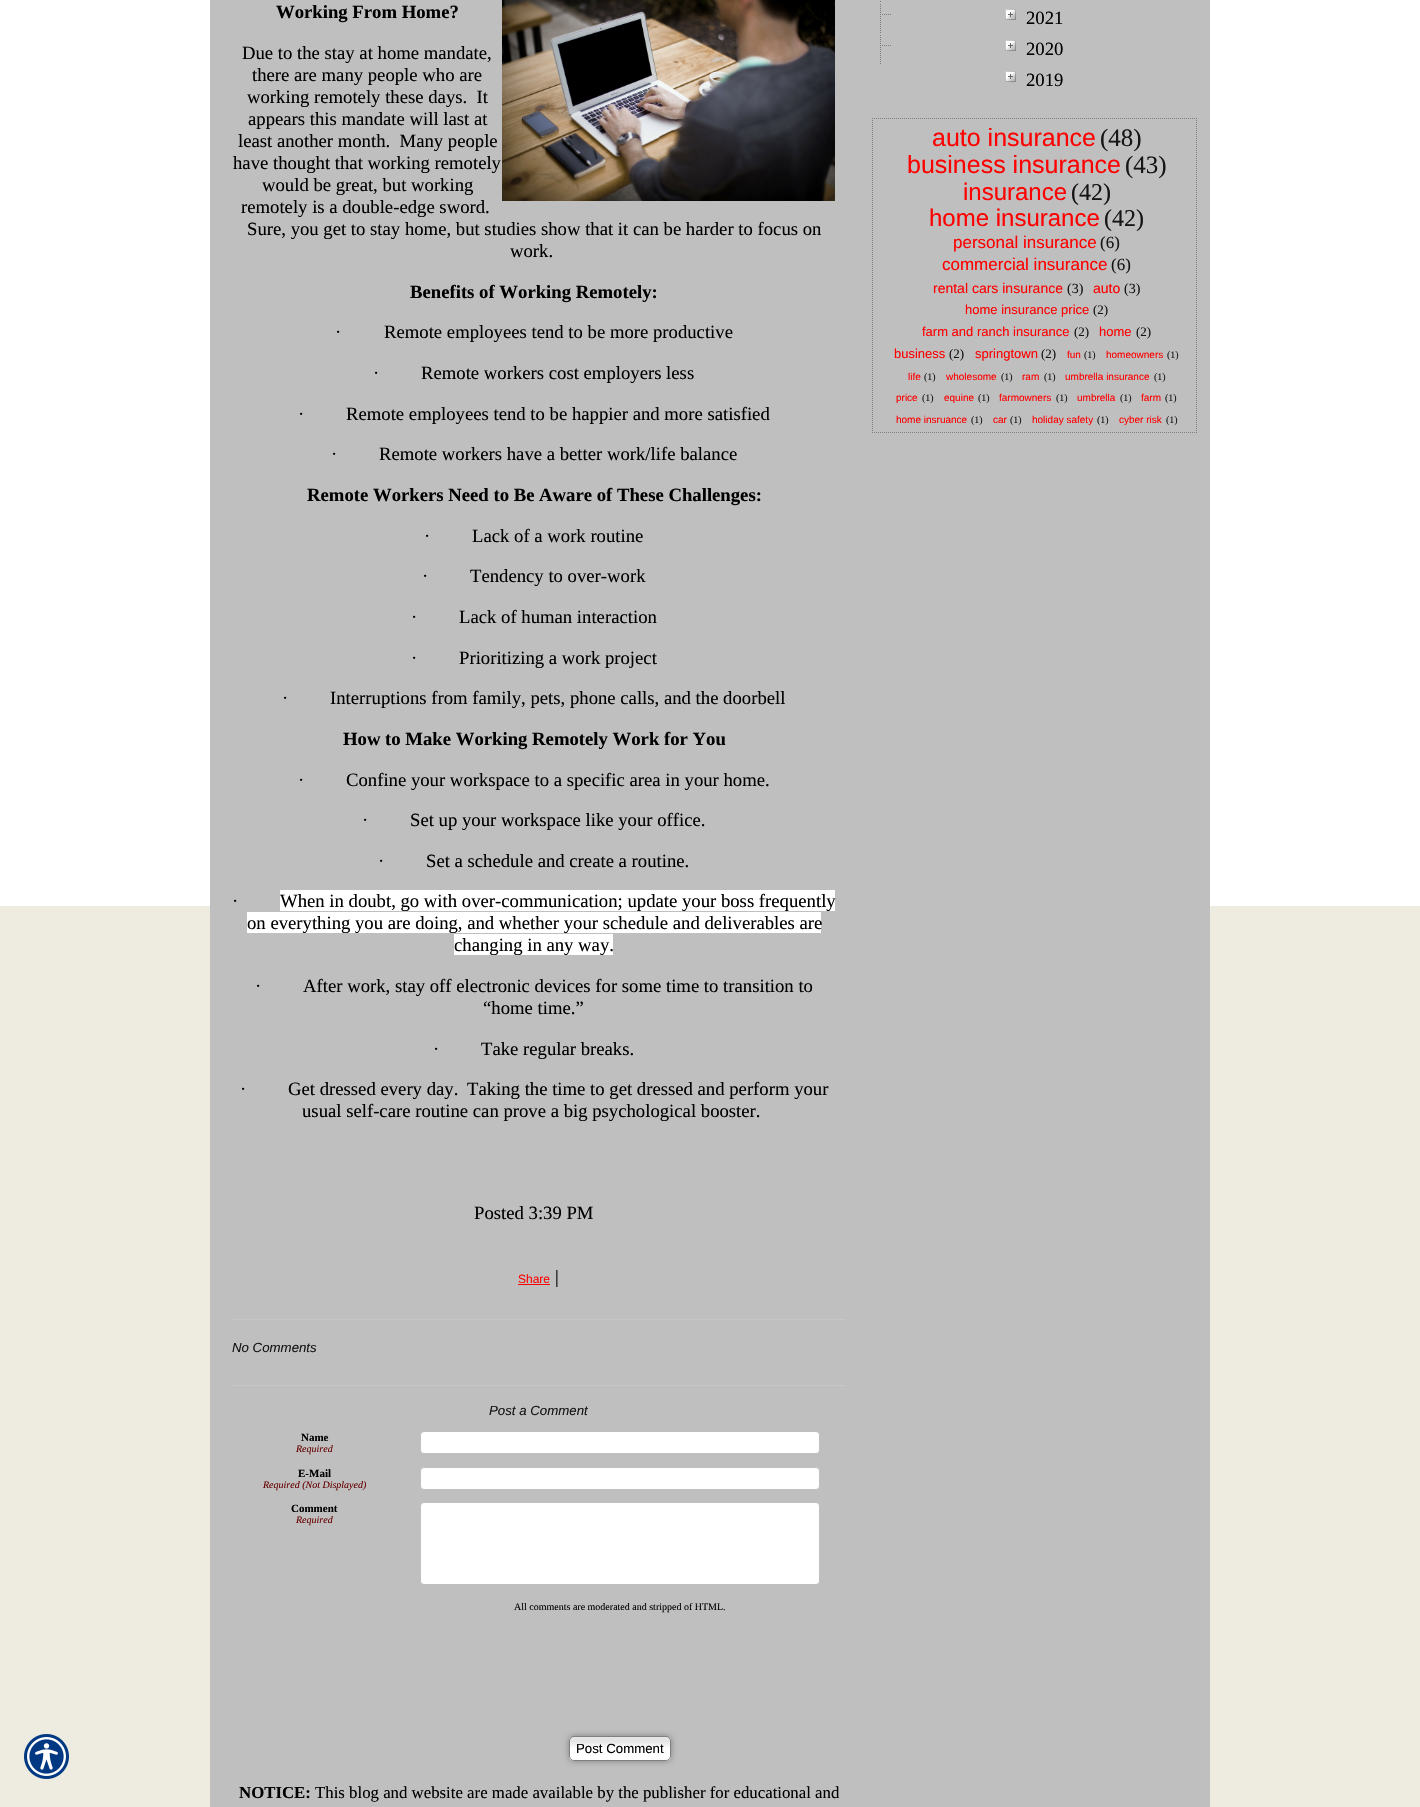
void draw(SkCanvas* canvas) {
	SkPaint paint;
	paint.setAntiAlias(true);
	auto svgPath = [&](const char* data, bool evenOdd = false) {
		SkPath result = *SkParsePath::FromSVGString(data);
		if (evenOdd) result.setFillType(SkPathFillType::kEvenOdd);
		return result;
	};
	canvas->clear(0xffeeece1);
	paint.setColor(0xffffffff);
	canvas->drawRect(SkRect::MakeXYWH(0, 0, 1420, 906), paint);
	canvas->drawImageRect(SkImages::DeferredFromEncodedData(SkData::MakeFromFileName("img1.png")), SkRect::MakeXYWH(24, 1734, 45, 45), SkSamplingOptions());
	paint.setColor(0xffbfbfbf);
	canvas->drawRect(SkRect::MakeXYWH(210, 0, 1000, 1807), paint);
	SkFont f1(fontMgr->matchFamilyStyle("Liberation Serif", SkFontStyle::Bold()), 18.7);
	f1.setSubpixel(true);
	paint.setColor(0xff000000);
	canvas->drawString("Working From Home?", 276, 18, f1, paint);
	canvas->drawImageRect(SkImages::DeferredFromEncodedData(SkData::MakeFromFileName("img2.png")), SkRect::MakeXYWH(502, 0, 333, 201), SkSamplingOptions());
	SkFont f2(fontMgr->matchFamilyStyle("Liberation Serif", SkFontStyle::Normal()), 18.7);
	f2.setSubpixel(true);
	canvas->drawString("Due to the stay at home mandate,", 242, 59, f2, paint);
	canvas->drawString("there are many people who are", 252, 81, f2, paint);
	canvas->drawString("working remotely these days.  It", 247, 103, f2, paint);
	canvas->drawString("appears this mandate will last at", 248, 125, f2, paint);
	canvas->drawString("least another month.  Many people", 238, 147, f2, paint);
	canvas->drawString("have thought that working remotely", 233, 169, f2, paint);
	canvas->drawString("would be great, but working", 262, 191, f2, paint);
	canvas->drawString("remotely is a double-edge sword.", 241, 213, f2, paint);
	canvas->drawString("Sure, you get to stay home, but studies show that it can be harder to focus on", 247, 235, f2, paint);
	canvas->drawString("work.", 510, 257, f2, paint);
	canvas->drawString("Benefits of Working Remotely:", 410, 298, f1, paint);
	canvas->drawString("·", 335, 338, f2, paint);
	canvas->drawString("Remote employees tend to be more productive", 384, 338, f2, paint);
	canvas->drawString("·", 373, 379, f2, paint);
	canvas->drawString("Remote workers cost employers less", 421, 379, f2, paint);
	canvas->drawString("·", 298, 420, f2, paint);
	canvas->drawString("Remote employees tend to be happier and more satisfied", 346, 420, f2, paint);
	canvas->drawString("·", 331, 460, f2, paint);
	canvas->drawString("Remote workers have a better work/life balance", 379, 460, f2, paint);
	canvas->drawString("Remote Workers Need to Be Aware of These Challenges:", 307, 501, f1, paint);
	canvas->drawString("·", 424, 542, f2, paint);
	canvas->drawString("Lack of a work routine", 472, 542, f2, paint);
	canvas->drawString("·", 422, 582, f2, paint);
	canvas->drawString("Tendency to over-work", 470, 582, f2, paint);
	canvas->drawString("·", 411, 623, f2, paint);
	canvas->drawString("Lack of human interaction", 459, 623, f2, paint);
	canvas->drawString("·", 411, 664, f2, paint);
	canvas->drawString("Prioritizing a work project", 459, 664, f2, paint);
	canvas->drawString("·", 282, 704, f2, paint);
	canvas->drawString("Interruptions from family, pets, phone calls, and the doorbell", 330, 704, f2, paint);
	canvas->drawString("How to Make Working Remotely Work for You", 343, 745, f1, paint);
	canvas->drawString("·", 298, 786, f2, paint);
	canvas->drawString("Confine your workspace to a specific area in your home.", 346, 786, f2, paint);
	canvas->drawString("·", 362, 826, f2, paint);
	canvas->drawString("Set up your workspace like your office.", 410, 826, f2, paint);
	canvas->drawString("·", 378, 867, f2, paint);
	canvas->drawString("Set a schedule and create a routine.", 426, 867, f2, paint);
	canvas->drawString("·", 232, 907, f2, paint);
	paint.setColor(0xffffffff);
	canvas->drawRect(SkRect::MakeXYWH(280, 890, 555, 21), paint);
	paint.setColor(0xff000000);
	canvas->drawString("When in doubt, go with over-communication; update your boss frequently", 280, 907, f2, paint);
	paint.setColor(0xffffffff);
	canvas->drawRect(SkRect::MakeXYWH(247, 912, 574, 21), paint);
	paint.setColor(0xff000000);
	canvas->drawString("on everything you are doing, and whether your schedule and deliverables are", 247, 929, f2, paint);
	paint.setColor(0xffffffff);
	canvas->drawRect(SkRect::MakeXYWH(454, 934, 159, 21), paint);
	paint.setColor(0xff000000);
	canvas->drawString("changing in any way.", 454, 951, f2, paint);
	canvas->drawString("·", 255, 992, f2, paint);
	canvas->drawString("After work, stay off electronic devices for some time to transition to", 303, 992, f2, paint);
	canvas->drawString("“home time.”", 483, 1014, f2, paint);
	canvas->drawString("·", 433, 1055, f2, paint);
	canvas->drawString("Take regular breaks.", 481, 1055, f2, paint);
	canvas->drawString("·", 240, 1095, f2, paint);
	canvas->drawString("Get dressed every day.", 288, 1095, f2, paint);
	canvas->drawString("Taking the time to get dressed and perform your", 467, 1095, f2, paint);
	canvas->drawString("usual self-care routine can prove a big psychological booster.", 302, 1117, f2, paint);
	canvas->drawString("Posted 3:39 PM", 474, 1219, f2, paint);
	SkFont f3(fontMgr->matchFamilyStyle("Liberation Sans", SkFontStyle::Normal()), 12);
	f3.setSubpixel(true);
	paint.setColor(0xfffe0000);
	canvas->drawString("Share", 518, 1283, f3, paint);
	canvas->drawRect(SkRect::MakeXYWH(518, 1284, 32, 1), paint);
	paint.setColor(0xff000000);
	canvas->drawString("|", 555, 1283, f2, paint);
	paint.setStroke(true);
	paint.setStrokeWidth(1);
	paint.setColor(0xffcccccc);
	paint.setPathEffect(SkDashPathEffect::Make({{1, 1}}, 0));
	canvas->drawPath(svgPath("M232 1319.5H845"), paint);
	paint.setPathEffect(nullptr);
	SkFont f4(fontMgr->matchFamilyStyle("Liberation Sans", SkFontStyle::Italic()), 13.25);
	f4.setSubpixel(true);
	paint.setStroke(false);
	paint.setColor(0xff151515);
	canvas->drawString("No Comments", 232, 1352, f4, paint);
	paint.setStroke(true);
	paint.setColor(0xffcccccc);
	paint.setPathEffect(SkDashPathEffect::Make({{1, 1}}, 0));
	canvas->drawPath(svgPath("M232 1385.5H845"), paint);
	paint.setPathEffect(nullptr);
	paint.setStroke(false);
	paint.setColor(0xff151515);
	canvas->drawString("Post a Comment", 489, 1415, f4, paint);
	SkFont f5(fontMgr->matchFamilyStyle("Liberation Serif", SkFontStyle::Bold()), 11);
	f5.setSubpixel(true);
	paint.setColor(0xff000000);
	canvas->drawString("Name", 301, 1441, f5, paint);
	SkFont f6(fontMgr->matchFamilyStyle("Liberation Serif", SkFontStyle::Italic()), 10);
	f6.setSubpixel(true);
	paint.setColor(0xff660000);
	canvas->drawString("Required", 296, 1452, f6, paint);
	paint.setColor(0xffffffff);
	canvas->drawRoundRect(SkRect::MakeXYWH(420.5, 1431.5, 399, 22), 3.5, 3.5, paint);
	paint.setStroke(true);
	paint.setColor(0xffc0c0c0);
	canvas->drawRoundRect(SkRect::MakeXYWH(420.5, 1431.5, 399, 22), 3.5, 3.5, paint);
	paint.setStroke(false);
	paint.setColor(0xff000000);
	canvas->drawString("E-Mail", 298, 1477, f5, paint);
	paint.setColor(0xff660000);
	canvas->drawString("Required (Not Displayed)", 263, 1488, f6, paint);
	paint.setColor(0xffffffff);
	canvas->drawRoundRect(SkRect::MakeXYWH(420.5, 1467.5, 399, 22), 3.5, 3.5, paint);
	paint.setStroke(true);
	paint.setColor(0xffc0c0c0);
	canvas->drawRoundRect(SkRect::MakeXYWH(420.5, 1467.5, 399, 22), 3.5, 3.5, paint);
	paint.setStroke(false);
	paint.setColor(0xff000000);
	canvas->drawString("Comment", 291, 1512, f5, paint);
	paint.setColor(0xff660000);
	canvas->drawString("Required", 296, 1523, f6, paint);
	paint.setColor(0xffffffff);
	canvas->drawRoundRect(SkRect::MakeXYWH(420.5, 1502.5, 399, 82), 3.5, 3.5, paint);
	paint.setStroke(true);
	paint.setColor(0xffc0c0c0);
	canvas->drawRoundRect(SkRect::MakeXYWH(420.5, 1502.5, 399, 82), 3.5, 3.5, paint);
	SkFont f7(fontMgr->matchFamilyStyle("Liberation Serif", SkFontStyle::Normal()), 10);
	f7.setSubpixel(true);
	paint.setStroke(false);
	paint.setColor(0xff000000);
	canvas->drawString("All comments are moderated and stripped of HTML.", 514, 1610, f7, paint);
	paint.setColor(0xff808080);
	paint.setMaskFilter(SkMaskFilter::MakeBlur(kNormal_SkBlurStyle, 3));
	canvas->drawRoundRect(SkRect::MakeXYWH(569, 1736, 102, 25), 5, 5, paint);
	paint.setMaskFilter(nullptr);
	canvas->drawImageRect(SkImages::DeferredFromEncodedData(SkData::MakeFromFileName("img3.png")), SkRect::MakeXYWH(569, 1737, 102, 24), SkSamplingOptions());
	paint.setStroke(true);
	canvas->drawRoundRect(SkRect::MakeXYWH(569.5, 1736.5, 101, 24), 4.5, 4.5, paint);
	SkFont f8(fontMgr->matchFamilyStyle("Liberation Sans", SkFontStyle::Normal()), 13.25);
	f8.setSubpixel(true);
	paint.setStroke(false);
	paint.setColor(0xff000000);
	canvas->drawString("Post Comment", 576, 1753, f8, paint);
	SkFont f9(fontMgr->matchFamilyStyle("Liberation Serif", SkFontStyle::Bold()), 16.8);
	f9.setSubpixel(true);
	canvas->drawString("NOTICE:", 239, 1798, f9, paint);
	SkFont f10(fontMgr->matchFamilyStyle("Liberation Serif", SkFontStyle::Normal()), 16.8);
	f10.setSubpixel(true);
	canvas->drawString("This blog and website are made available by the publisher for educational and", 315, 1798, f10, paint);
	paint.setColor(0xff7b7b7b);
	canvas->drawRect(SkRect::MakeXYWH(880, 1, 1, 1), paint);
	canvas->drawImageRect(SkImages::DeferredFromEncodedData(SkData::MakeFromFileName("img4.png")), SkRect::MakeXYWH(880, 4, 1, 29), SkSamplingOptions());
	canvas->drawImageRect(SkImages::DeferredFromEncodedData(SkData::MakeFromFileName("img5.png")), SkRect::MakeXYWH(882, 14, 9, 1), SkSamplingOptions());
	canvas->drawImageRect(SkImages::DeferredFromEncodedData(SkData::MakeFromFileName("img6.png")), SkRect::MakeXYWH(1005, 9, 11, 11), SkSamplingOptions());
	paint.setColor(0xff000000);
	canvas->drawString("2021", 1026, 24, f2, paint);
	canvas->drawImageRect(SkImages::DeferredFromEncodedData(SkData::MakeFromFileName("img4.png")), SkRect::MakeXYWH(880, 35, 1, 29), SkSamplingOptions());
	canvas->drawImageRect(SkImages::DeferredFromEncodedData(SkData::MakeFromFileName("img5.png")), SkRect::MakeXYWH(882, 45, 9, 1), SkSamplingOptions());
	canvas->drawImageRect(SkImages::DeferredFromEncodedData(SkData::MakeFromFileName("img6.png")), SkRect::MakeXYWH(1005, 40, 11, 11), SkSamplingOptions());
	canvas->drawString("2020", 1026, 55, f2, paint);
	canvas->drawImageRect(SkImages::DeferredFromEncodedData(SkData::MakeFromFileName("img6.png")), SkRect::MakeXYWH(1005, 71, 11, 11), SkSamplingOptions());
	canvas->drawString("2019", 1026, 86, f2, paint);
	paint.setStroke(true);
	paint.setColor(0xff7f7f7f);
	paint.setPathEffect(SkDashPathEffect::Make({{1, 1}}, 0));
	canvas->drawPath(svgPath("M872 118.5H1197"), paint);
	paint.setPathEffect(nullptr);
	paint.setPathEffect(SkDashPathEffect::Make({{1, 1}}, 0));
	canvas->drawPath(svgPath("M1196.5 118V433"), paint);
	paint.setPathEffect(nullptr);
	paint.setPathEffect(SkDashPathEffect::Make({{1, 1}}, 0));
	canvas->drawPath(svgPath("M872 432.5H1197"), paint);
	paint.setPathEffect(nullptr);
	paint.setPathEffect(SkDashPathEffect::Make({{1, 1}}, 0));
	canvas->drawPath(svgPath("M872.5 118V433"), paint);
	paint.setPathEffect(nullptr);
	SkFont f11(fontMgr->matchFamilyStyle("Liberation Sans", SkFontStyle::Normal()), 25);
	f11.setSubpixel(true);
	paint.setStroke(false);
	paint.setColor(0xfffe0000);
	canvas->drawString("auto insurance", 932, 146, f11, paint);
	SkFont f12(fontMgr->matchFamilyStyle("Liberation Serif", SkFontStyle::Normal()), 25);
	f12.setSubpixel(true);
	paint.setColor(0xff151515);
	canvas->drawString("(48)", 1100, 146, f12, paint);
	paint.setColor(0xfffe0000);
	canvas->drawString("business insurance", 907, 173, f11, paint);
	paint.setColor(0xff151515);
	canvas->drawString("(43)", 1125, 173, f12, paint);
	SkFont f13(fontMgr->matchFamilyStyle("Liberation Sans", SkFontStyle::Normal()), 24);
	f13.setSubpixel(true);
	paint.setColor(0xfffe0000);
	canvas->drawString("insurance", 963, 200, f13, paint);
	SkFont f14(fontMgr->matchFamilyStyle("Liberation Serif", SkFontStyle::Normal()), 24);
	f14.setSubpixel(true);
	paint.setColor(0xff151515);
	canvas->drawString("(42)", 1071, 200, f14, paint);
	paint.setColor(0xfffe0000);
	canvas->drawString("home insurance", 929, 226, f13, paint);
	paint.setColor(0xff151515);
	canvas->drawString("(42)", 1104, 226, f14, paint);
	SkFont f15(fontMgr->matchFamilyStyle("Liberation Sans", SkFontStyle::Normal()), 17);
	f15.setSubpixel(true);
	paint.setColor(0xfffe0000);
	canvas->drawString("personal insurance", 953, 248, f15, paint);
	SkFont f16(fontMgr->matchFamilyStyle("Liberation Serif", SkFontStyle::Normal()), 17);
	f16.setSubpixel(true);
	paint.setColor(0xff151515);
	canvas->drawString("(6)", 1100, 248, f16, paint);
	paint.setColor(0xfffe0000);
	canvas->drawString("commercial insurance", 942, 270, f15, paint);
	paint.setColor(0xff151515);
	canvas->drawString("(6)", 1111, 270, f16, paint);
	SkFont f17(fontMgr->matchFamilyStyle("Liberation Sans", SkFontStyle::Normal()), 14);
	f17.setSubpixel(true);
	paint.setColor(0xfffe0000);
	canvas->drawString("rental cars insurance", 933, 293, f17, paint);
	SkFont f18(fontMgr->matchFamilyStyle("Liberation Serif", SkFontStyle::Normal()), 14);
	f18.setSubpixel(true);
	paint.setColor(0xff151515);
	canvas->drawString("(3)", 1067, 293, f18, paint);
	paint.setColor(0xfffe0000);
	canvas->drawString("auto", 1093, 293, f17, paint);
	paint.setColor(0xff151515);
	canvas->drawString("(3)", 1124, 293, f18, paint);
	SkFont f19(fontMgr->matchFamilyStyle("Liberation Sans", SkFontStyle::Normal()), 13);
	f19.setSubpixel(true);
	paint.setColor(0xfffe0000);
	canvas->drawString("home insurance price", 965, 314, f19, paint);
	SkFont f20(fontMgr->matchFamilyStyle("Liberation Serif", SkFontStyle::Normal()), 13);
	f20.setSubpixel(true);
	paint.setColor(0xff151515);
	canvas->drawString("(2)", 1093, 314, f20, paint);
	paint.setColor(0xfffe0000);
	canvas->drawString("farm and ranch insurance", 922, 336, f19, paint);
	paint.setColor(0xff151515);
	canvas->drawString("(2)", 1074, 336, f20, paint);
	paint.setColor(0xfffe0000);
	canvas->drawString("home", 1099, 336, f19, paint);
	paint.setColor(0xff151515);
	canvas->drawString("(2)", 1136, 336, f20, paint);
	paint.setColor(0xfffe0000);
	canvas->drawString("business", 894, 358, f19, paint);
	paint.setColor(0xff151515);
	canvas->drawString("(2)", 949, 358, f20, paint);
	paint.setColor(0xfffe0000);
	canvas->drawString("springtown", 975, 358, f19, paint);
	paint.setColor(0xff151515);
	canvas->drawString("(2)", 1041, 358, f20, paint);
	SkFont f21(fontMgr->matchFamilyStyle("Liberation Sans", SkFontStyle::Normal()), 10);
	f21.setSubpixel(true);
	paint.setColor(0xfffe0000);
	canvas->drawString("fun", 1067, 358, f21, paint);
	paint.setColor(0xff151515);
	canvas->drawString("(1)", 1084, 358, f7, paint);
	paint.setColor(0xfffe0000);
	canvas->drawString("homeowners", 1106, 358, f21, paint);
	paint.setColor(0xff151515);
	canvas->drawString("(1)", 1167, 358, f7, paint);
	paint.setColor(0xfffe0000);
	canvas->drawString("life", 908, 380, f21, paint);
	paint.setColor(0xff151515);
	canvas->drawString("(1)", 924, 380, f7, paint);
	paint.setColor(0xfffe0000);
	canvas->drawString("wholesome", 946, 380, f21, paint);
	paint.setColor(0xff151515);
	canvas->drawString("(1)", 1001, 380, f7, paint);
	paint.setColor(0xfffe0000);
	canvas->drawString("ram", 1022, 380, f21, paint);
	paint.setColor(0xff151515);
	canvas->drawString("(1)", 1044, 380, f7, paint);
	paint.setColor(0xfffe0000);
	canvas->drawString("umbrella insurance", 1065, 380, f21, paint);
	paint.setColor(0xff151515);
	canvas->drawString("(1)", 1154, 380, f7, paint);
	paint.setColor(0xfffe0000);
	canvas->drawString("price", 896, 401, f21, paint);
	paint.setColor(0xff151515);
	canvas->drawString("(1)", 922, 401, f7, paint);
	paint.setColor(0xfffe0000);
	canvas->drawString("equine", 944, 401, f21, paint);
	paint.setColor(0xff151515);
	canvas->drawString("(1)", 978, 401, f7, paint);
	paint.setColor(0xfffe0000);
	canvas->drawString("farmowners", 999, 401, f21, paint);
	paint.setColor(0xff151515);
	canvas->drawString("(1)", 1056, 401, f7, paint);
	paint.setColor(0xfffe0000);
	canvas->drawString("umbrella", 1077, 401, f21, paint);
	paint.setColor(0xff151515);
	canvas->drawString("(1)", 1120, 401, f7, paint);
	paint.setColor(0xfffe0000);
	canvas->drawString("farm", 1141, 401, f21, paint);
	paint.setColor(0xff151515);
	canvas->drawString("(1)", 1165, 401, f7, paint);
	paint.setColor(0xfffe0000);
	canvas->drawString("home insruance", 896, 423, f21, paint);
	paint.setColor(0xff151515);
	canvas->drawString("(1)", 971, 423, f7, paint);
	paint.setColor(0xfffe0000);
	canvas->drawString("car", 993, 423, f21, paint);
	paint.setColor(0xff151515);
	canvas->drawString("(1)", 1010, 423, f7, paint);
	paint.setColor(0xfffe0000);
	canvas->drawString("holiday safety", 1032, 423, f21, paint);
	paint.setColor(0xff151515);
	canvas->drawString("(1)", 1097, 423, f7, paint);
	paint.setColor(0xfffe0000);
	canvas->drawString("cyber risk", 1119, 423, f21, paint);
	paint.setColor(0xff151515);
	canvas->drawString("(1)", 1166, 423, f7, paint);
}
